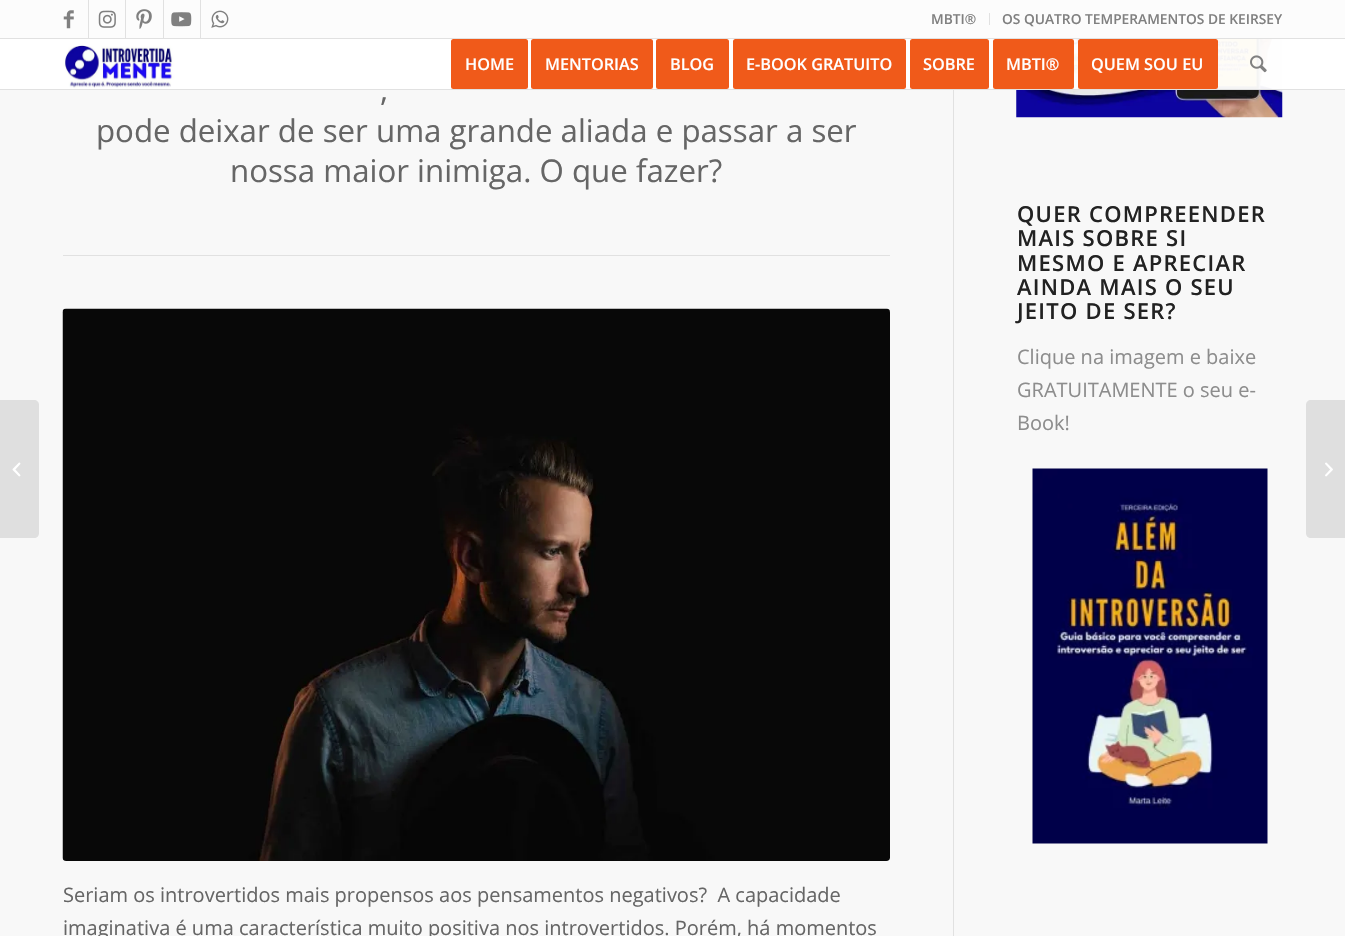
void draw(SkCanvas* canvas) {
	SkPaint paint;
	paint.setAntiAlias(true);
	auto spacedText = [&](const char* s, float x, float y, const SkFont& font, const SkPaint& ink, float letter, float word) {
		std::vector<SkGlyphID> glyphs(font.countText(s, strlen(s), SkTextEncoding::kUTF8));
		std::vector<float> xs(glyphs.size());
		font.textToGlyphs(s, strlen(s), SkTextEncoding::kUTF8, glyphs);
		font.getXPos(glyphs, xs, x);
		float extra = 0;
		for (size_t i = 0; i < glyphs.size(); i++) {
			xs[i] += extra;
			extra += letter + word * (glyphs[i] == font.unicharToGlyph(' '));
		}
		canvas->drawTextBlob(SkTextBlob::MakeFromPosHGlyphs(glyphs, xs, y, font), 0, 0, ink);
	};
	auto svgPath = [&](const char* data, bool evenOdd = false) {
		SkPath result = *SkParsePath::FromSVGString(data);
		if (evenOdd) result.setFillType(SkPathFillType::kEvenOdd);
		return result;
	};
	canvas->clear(0xfff8f8f8);
	paint.setColor(0xfffcfcfc);
	canvas->drawRect(SkRect::MakeXYWH(0, 0, 1345, 38), paint);
	paint.setColor(0xffe1e1e1);
	canvas->drawRect(SkRect::MakeXYWH(0, 38, 1345, 1), paint);
	canvas->drawRect(SkRect::MakeXYWH(88, 0, 1, 38), paint);
	canvas->drawImageRect(SkImages::DeferredFromEncodedData(SkData::MakeFromFileName("img1.png")), SkRect::MakeXYWH(63, 10, 11, 19), SkSamplingOptions());
	canvas->drawRect(SkRect::MakeXYWH(125, 0, 1, 38), paint);
	canvas->drawImageRect(SkImages::DeferredFromEncodedData(SkData::MakeFromFileName("img2.png")), SkRect::MakeXYWH(98, 10, 18, 18), SkSamplingOptions());
	canvas->drawRect(SkRect::MakeXYWH(163, 0, 1, 38), paint);
	canvas->drawImageRect(SkImages::DeferredFromEncodedData(SkData::MakeFromFileName("img3.png")), SkRect::MakeXYWH(136, 9, 16, 20), SkSamplingOptions());
	canvas->drawRect(SkRect::MakeXYWH(200, 0, 1, 38), paint);
	canvas->drawImageRect(SkImages::DeferredFromEncodedData(SkData::MakeFromFileName("img4.png")), SkRect::MakeXYWH(171, 12, 21, 15), SkSamplingOptions());
	canvas->drawImageRect(SkImages::DeferredFromEncodedData(SkData::MakeFromFileName("img5.png")), SkRect::MakeXYWH(211, 10, 18, 18), SkSamplingOptions());
	canvas->drawRect(SkRect::MakeXYWH(989, 13, 1, 12), paint);
	SkFont f1(fontMgr->matchFamilyStyle("Open Sans", SkFontStyle(600, SkFontStyle::kNormal_Width, SkFontStyle::kUpright_Slant)), 13.75);
	f1.setSubpixel(true);
	paint.setColor(0xff808080);
	canvas->drawString("MBTI®", 931, 24, f1, paint);
	canvas->drawString("OS QUATRO TEMPERAMENTOS DE KEIRSEY", 1002, 24, f1, paint);
	canvas->drawImageRect(SkImages::DeferredFromEncodedData(SkData::MakeFromFileName("img10.png")), SkRect::MakeXYWH(1016, 39, 267, 79), SkSamplingOptions());
	paint.setColor(0xf2ffffff);
	canvas->drawRect(SkRect::MakeXYWH(0, 39, 1345, 50), paint);
	paint.setColor(0xffe1e1e1);
	canvas->drawRect(SkRect::MakeXYWH(0, 89, 1345, 1), paint);
	canvas->drawImageRect(SkImages::DeferredFromEncodedData(SkData::MakeFromFileName("img6.png")), SkRect::MakeXYWH(63, 39, 112, 50), SkSamplingOptions());
	paint.setColor(0xfff05a1a);
	canvas->drawRoundRect(SkRect::MakeXYWH(452.5, 40.5, 74, 47), 1, 1, paint);
	paint.setStroke(true);
	paint.setStrokeWidth(3);
	canvas->drawRoundRect(SkRect::MakeXYWH(452.5, 40.5, 74, 47), 1, 1, paint);
	SkFont f2(fontMgr->matchFamilyStyle("Open Sans", SkFontStyle(600, SkFontStyle::kNormal_Width, SkFontStyle::kUpright_Slant)), 16.25);
	f2.setSubpixel(true);
	paint.setStroke(false);
	paint.setColor(0xffffffff);
	canvas->drawString("HOME", 465, 70, f2, paint);
	paint.setColor(0xfff05a1a);
	canvas->drawRoundRect(SkRect::MakeXYWH(532.5, 40.5, 119, 47), 1, 1, paint);
	paint.setStroke(true);
	canvas->drawRoundRect(SkRect::MakeXYWH(532.5, 40.5, 119, 47), 1, 1, paint);
	paint.setStroke(false);
	paint.setColor(0xffffffff);
	canvas->drawString("MENTORIAS", 545, 70, f2, paint);
	paint.setColor(0xfff05a1a);
	canvas->drawRoundRect(SkRect::MakeXYWH(657.5, 40.5, 70, 47), 1, 1, paint);
	paint.setStroke(true);
	canvas->drawRoundRect(SkRect::MakeXYWH(657.5, 40.5, 70, 47), 1, 1, paint);
	paint.setStroke(false);
	paint.setColor(0xffffffff);
	canvas->drawString("BLOG", 670, 70, f2, paint);
	paint.setColor(0xfff05a1a);
	canvas->drawRoundRect(SkRect::MakeXYWH(734.5, 40.5, 170, 47), 1, 1, paint);
	paint.setStroke(true);
	canvas->drawRoundRect(SkRect::MakeXYWH(734.5, 40.5, 170, 47), 1, 1, paint);
	paint.setStroke(false);
	paint.setColor(0xffffffff);
	canvas->drawString("E-BOOK GRATUITO", 746, 70, f2, paint);
	paint.setColor(0xfff05a1a);
	canvas->drawRoundRect(SkRect::MakeXYWH(911.5, 40.5, 76, 47), 1, 1, paint);
	paint.setStroke(true);
	canvas->drawRoundRect(SkRect::MakeXYWH(911.5, 40.5, 76, 47), 1, 1, paint);
	paint.setStroke(false);
	paint.setColor(0xffffffff);
	canvas->drawString("SOBRE", 923, 70, f2, paint);
	paint.setColor(0xfff05a1a);
	canvas->drawRoundRect(SkRect::MakeXYWH(994.5, 40.5, 78, 47), 1, 1, paint);
	paint.setStroke(true);
	canvas->drawRoundRect(SkRect::MakeXYWH(994.5, 40.5, 78, 47), 1, 1, paint);
	paint.setStroke(false);
	paint.setColor(0xffffffff);
	canvas->drawString("MBTI®", 1006, 70, f2, paint);
	paint.setColor(0xfff05a1a);
	canvas->drawRoundRect(SkRect::MakeXYWH(1079.5, 40.5, 137, 47), 1, 1, paint);
	paint.setStroke(true);
	canvas->drawRoundRect(SkRect::MakeXYWH(1079.5, 40.5, 137, 47), 1, 1, paint);
	paint.setStroke(false);
	paint.setColor(0xffffffff);
	canvas->drawString("QUEM SOU EU", 1091, 70, f2, paint);
	canvas->drawImageRect(SkImages::DeferredFromEncodedData(SkData::MakeFromFileName("img7.png")), SkRect::MakeXYWH(1250, 55, 17, 18), SkSamplingOptions());
	paint.setColor(0xffdfdfdf);
	canvas->drawPath(svgPath("M0 400H34C37 400 39 402 39 405V533C39 536 37 538 34 538H0Z"), paint);
	canvas->drawImageRect(SkImages::DeferredFromEncodedData(SkData::MakeFromFileName("img8.png")), SkRect::MakeXYWH(12, 462, 9, 15), SkSamplingOptions());
	paint.setColor(0xffe1e1e1);
	canvas->drawRect(SkRect::MakeXYWH(953, 90, 1, 846), paint);
	SkFont f3(fontMgr->matchFamilyStyle("Open Sans", SkFontStyle::Normal()), 31.25);
	f3.setSubpixel(true);
	paint.setColor(0xff666666);
	canvas->drawString(",", 380, 101, f3, paint);
	canvas->drawString("pode deixar de ser uma grande aliada e passar a ser", 96, 142, f3, paint);
	canvas->drawString("nossa maior inimiga. O que fazer?", 230, 182, f3, paint);
	paint.setColor(0xffe1e1e1);
	canvas->drawRect(SkRect::MakeXYWH(63, 255, 827, 1), paint);
	canvas->drawImageRect(SkImages::DeferredFromEncodedData(SkData::MakeFromFileName("img9.png")), SkRect::MakeXYWH(62, 308, 828, 553), SkSamplingOptions());
	SkFont f4(fontMgr->matchFamilyStyle("Open Sans", SkFontStyle::Normal()), 20);
	f4.setSubpixel(true);
	paint.setColor(0xff666666);
	canvas->drawString("Seriam os introvertidos mais propensos aos pensamentos negativos?  A capacidade", 63, 902, f4, paint);
	canvas->drawString("imaginativa é uma característica muito positiva nos introvertidos. Porém, há momentos", 63, 935, f4, paint);
	SkFont f5(fontMgr->matchFamilyStyle("Open Sans", SkFontStyle(600, SkFontStyle::kNormal_Width, SkFontStyle::kUpright_Slant)), 22);
	f5.setSubpixel(true);
	paint.setColor(0xff222222);
	spacedText("QUER COMPREENDER", 1017, 222, f5, paint, 1.25, 0);
	spacedText("MAIS SOBRE SI", 1017, 246, f5, paint, 1.25, 0);
	spacedText("MESMO E APRECIAR", 1017, 271, f5, paint, 1.25, 0);
	spacedText("AINDA MAIS O SEU", 1017, 295, f5, paint, 1.25, 0);
	spacedText("JEITO DE SER?", 1017, 319, f5, paint, 1.25, 0);
	paint.setColor(0xff8d8d8d);
	canvas->drawString("Clique na imagem e baixe", 1017, 364, f4, paint);
	canvas->drawString("GRATUITAMENTE o seu e-", 1017, 397, f4, paint);
	canvas->drawString("Book!", 1017, 430, f4, paint);
	canvas->drawImageRect(SkImages::DeferredFromEncodedData(SkData::MakeFromFileName("img11.png")), SkRect::MakeXYWH(1032, 468, 236, 376), SkSamplingOptions());
	paint.setColor(0xffdfdfdf);
	canvas->drawPath(svgPath("M1311 400H1345V538H1311C1308 538 1306 536 1306 533V405C1306 402 1308 400 1311 400Z"), paint);
	canvas->drawImageRect(SkImages::DeferredFromEncodedData(SkData::MakeFromFileName("img12.png")), SkRect::MakeXYWH(1325, 462, 8, 15), SkSamplingOptions());
}
